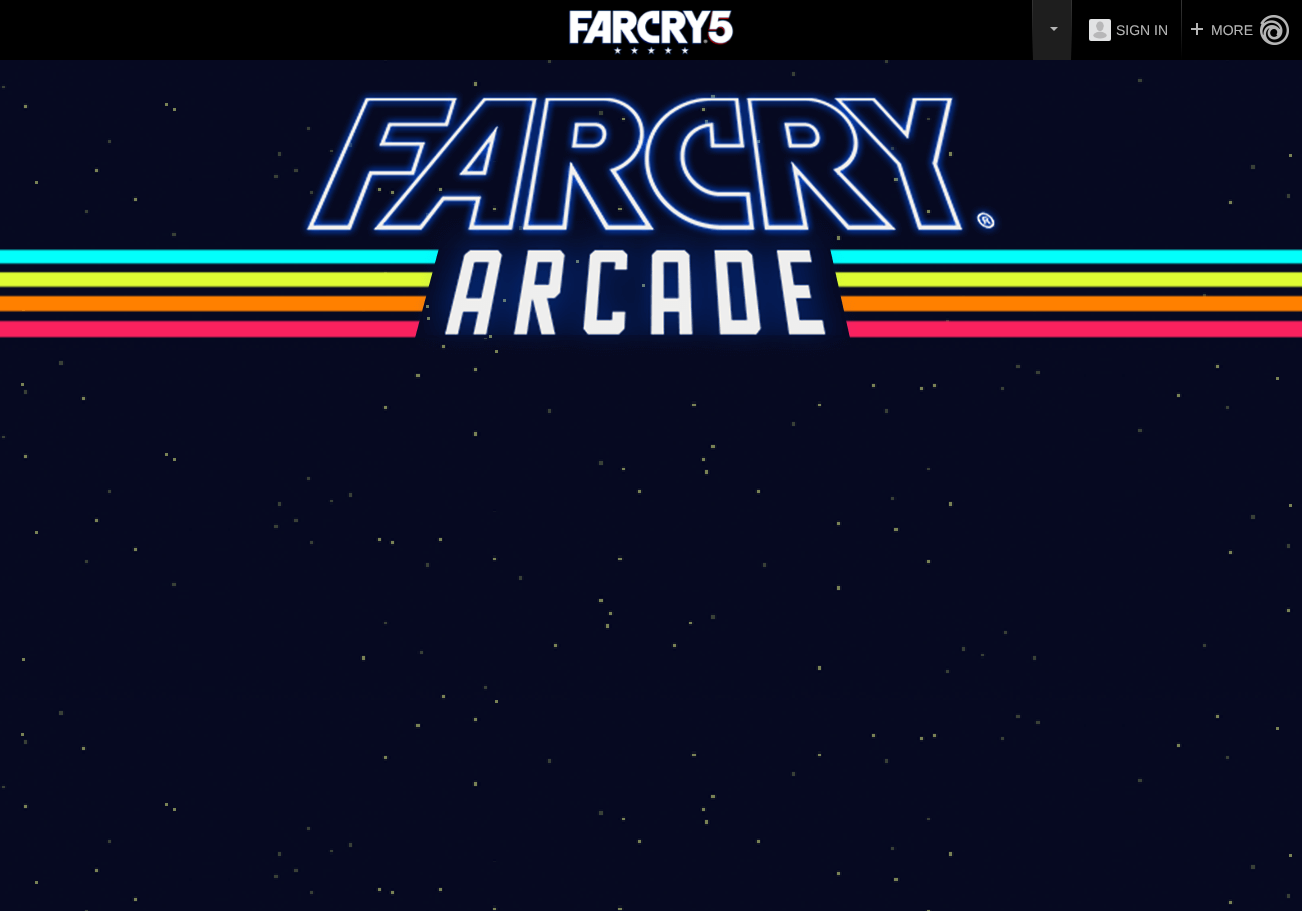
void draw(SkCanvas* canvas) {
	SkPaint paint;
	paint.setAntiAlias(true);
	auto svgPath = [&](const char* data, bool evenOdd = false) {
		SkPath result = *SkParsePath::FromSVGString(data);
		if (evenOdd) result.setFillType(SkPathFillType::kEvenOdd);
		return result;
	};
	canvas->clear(0xffffffff);
	canvas->drawImageRect(SkImages::DeferredFromEncodedData(SkData::MakeFromFileName("img1.png")), SkRect::MakeXYWH(0, 60, 1302, 851), SkSamplingOptions());
	paint.setColor(0xff000000);
	canvas->drawRect(SkRect::MakeXYWH(0, 0, 1302, 60), paint);
	canvas->drawImageRect(SkImages::DeferredFromEncodedData(SkData::MakeFromFileName("img2.png")), SkRect::MakeXYWH(568, 10, 166, 45), SkSamplingOptions());
	paint.setColor(0xff1e1e1e);
	canvas->drawRect(SkRect::MakeXYWH(1033, 0, 38, 60), paint);
	{
		const SkColor colors[] = {0xff323232, 0xff242424, 0xff000000};
		const float stops[] = {0.07, 0.4, 1};
		const SkPoint ends[] = {{1033, 0}, {1033, 60}};
		paint.setShader(SkGradientShader::MakeLinear(ends, colors, stops, 3, SkTileMode::kClamp));
		paint.setAlpha(255);
	}
	canvas->drawRect(SkRect::MakeXYWH(1032, 0, 1, 60), paint);
	paint.setShader(nullptr);
	paint.setColor(0xffb5b5b5);
	canvas->drawPath(svgPath("M1050 27H1058L1054 31Z"), paint);
	{
		const SkColor colors[] = {0xff323232, 0xff242424, 0xff000000};
		const float stops[] = {0.07, 0.4, 1};
		const SkPoint ends[] = {{1072, 0}, {1072, 60}};
		paint.setShader(SkGradientShader::MakeLinear(ends, colors, stops, 3, SkTileMode::kClamp));
		paint.setAlpha(255);
	}
	canvas->drawRect(SkRect::MakeXYWH(1071, 0, 1, 60), paint);
	paint.setShader(nullptr);
	paint.setColor(0xffe2e3e4);
	canvas->drawRoundRect(SkRect::MakeXYWH(1089, 19, 22, 22), 2, 2, paint);
	canvas->drawImageRect(SkImages::DeferredFromEncodedData(SkData::MakeFromFileName("img3.png")), SkRect::MakeXYWH(1093, 21, 14, 18), SkSamplingOptions());
	SkFont f1(fontMgr->matchFamilyStyle("Liberation Sans", SkFontStyle::Normal()), 14);
	f1.setSubpixel(true);
	paint.setColor(0xffb5b5b5);
	canvas->drawString("SIGN IN", 1116, 35, f1, paint);
	{
		const SkColor colors[] = {0xff323232, 0xff242424, 0xff000000};
		const float stops[] = {0.07, 0.4, 1};
		const SkPoint ends[] = {{1182, 0}, {1182, 60}};
		paint.setShader(SkGradientShader::MakeLinear(ends, colors, stops, 3, SkTileMode::kClamp));
		paint.setAlpha(255);
	}
	canvas->drawRect(SkRect::MakeXYWH(1181, 0, 1, 60), paint);
	paint.setShader(nullptr);
	paint.setColor(0xffb5b5b5);
	canvas->drawRect(SkRect::MakeXYWH(1260, 15, 29, 30), paint);
	canvas->drawRect(SkRect::MakeXYWH(1191, 28, 12, 2), paint);
	canvas->drawRect(SkRect::MakeXYWH(1196, 23, 2, 12), paint);
	canvas->drawString("MORE", 1211, 35, f1, paint);
	canvas->drawImageRect(SkImages::DeferredFromEncodedData(SkData::MakeFromFileName("img4.png")), SkRect::MakeXYWH(1260, 15, 29, 30), SkSamplingOptions());
	canvas->drawImageRect(SkImages::DeferredFromEncodedData(SkData::MakeFromFileName("img5.png")), SkRect::MakeXYWH(0, 249, 1302, 89), SkSamplingOptions());
	canvas->drawImageRect(SkImages::DeferredFromEncodedData(SkData::MakeFromFileName("img6.png")), SkRect::MakeXYWH(300, 90, 702, 267), SkSamplingOptions());
}
